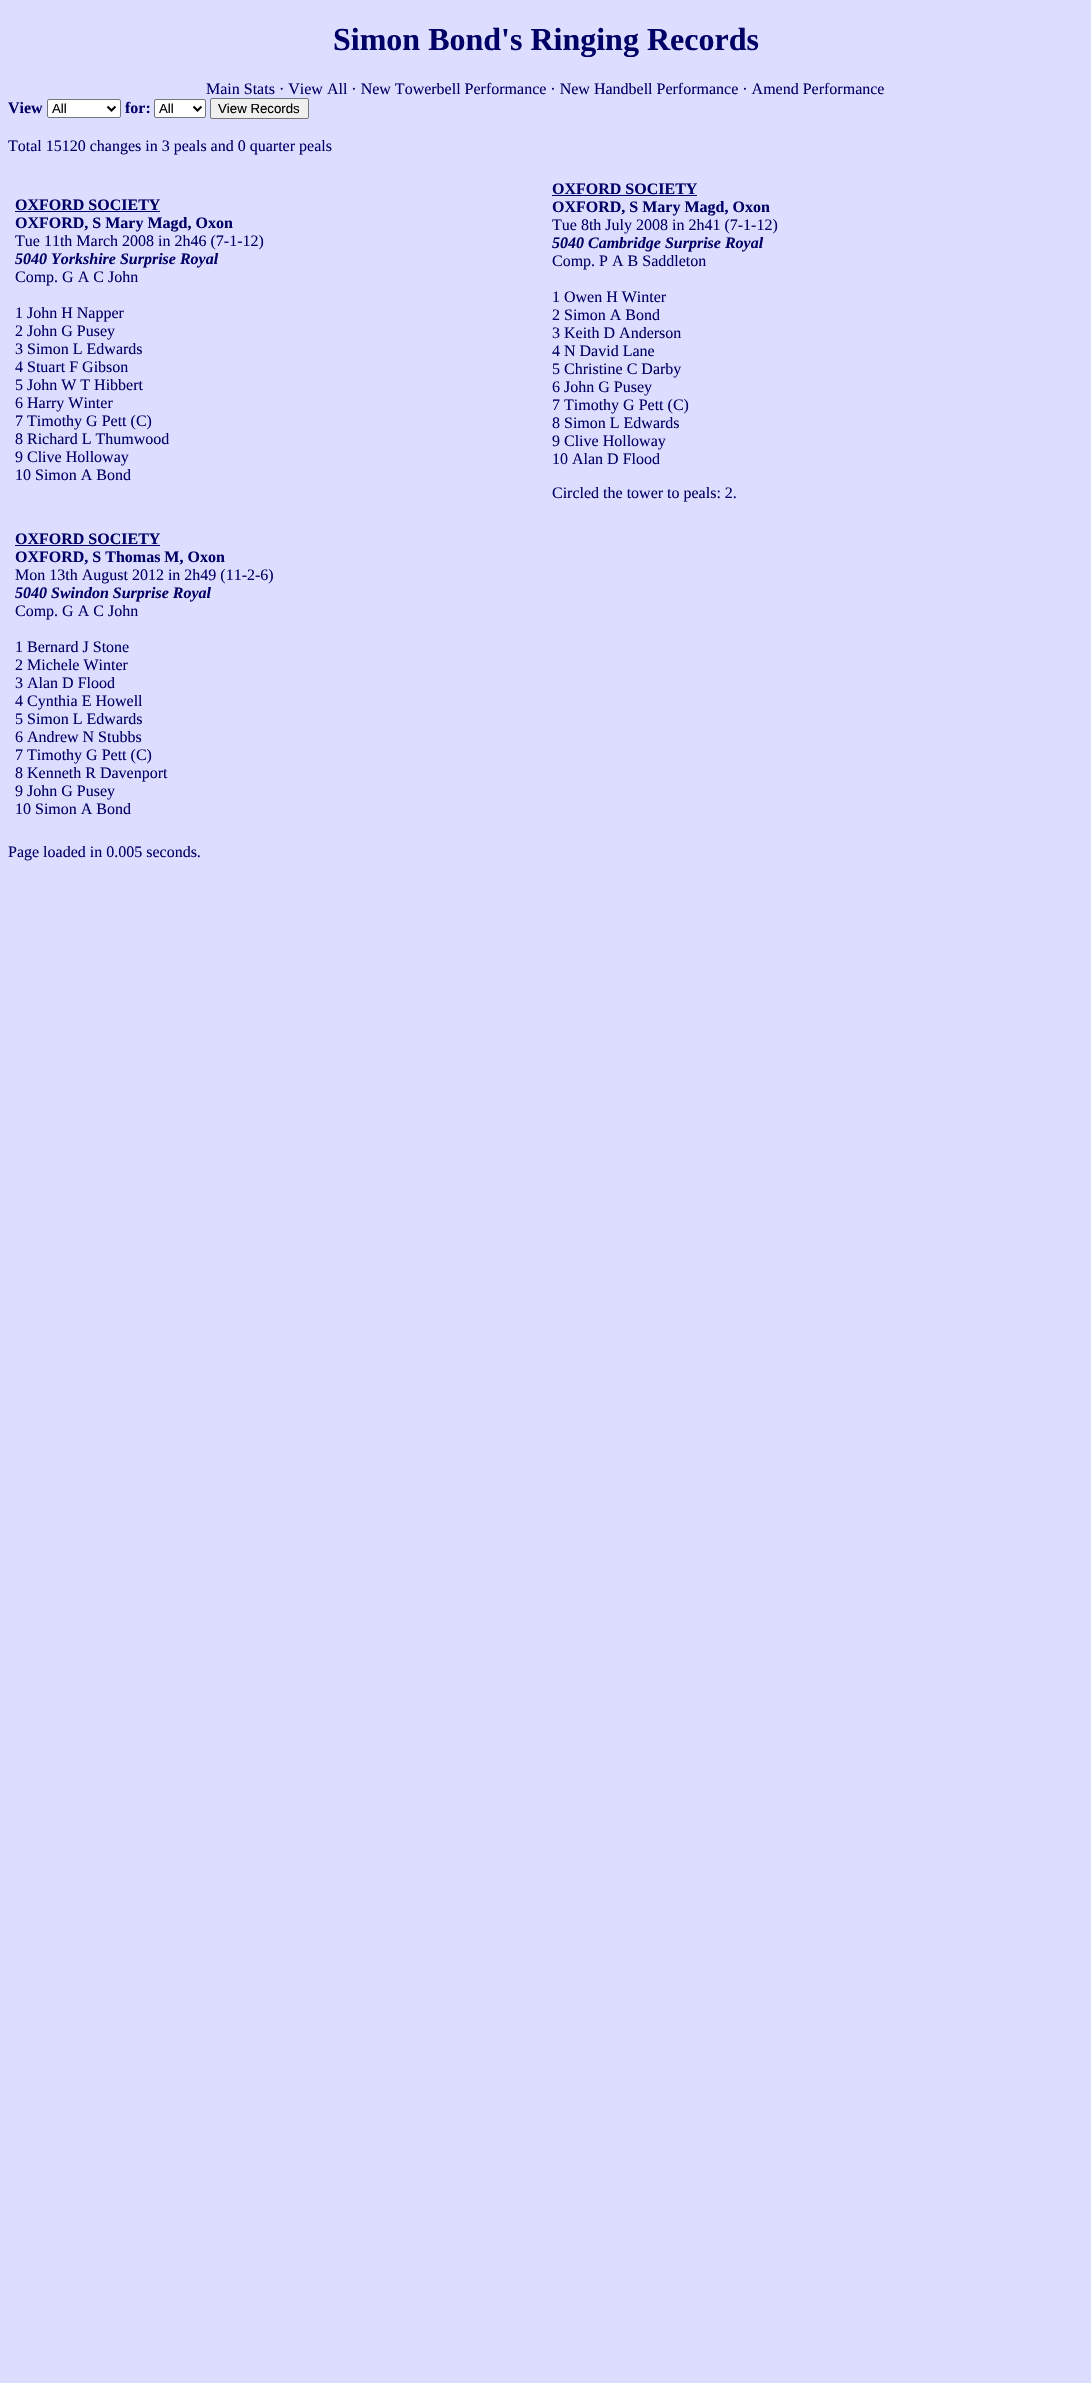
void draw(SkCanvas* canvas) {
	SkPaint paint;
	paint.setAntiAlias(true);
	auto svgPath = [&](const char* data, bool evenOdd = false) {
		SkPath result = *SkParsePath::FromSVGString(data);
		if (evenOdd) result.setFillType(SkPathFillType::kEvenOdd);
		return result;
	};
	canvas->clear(0xffddddff);
	SkFont f1(fontMgr->matchFamilyStyle("Liberation Serif", SkFontStyle::Bold()), 32);
	f1.setSubpixel(true);
	paint.setColor(0xff000066);
	canvas->drawString("Simon Bond's Ringing Records", 333, 50, f1, paint);
	SkFont f2(fontMgr->matchFamilyStyle("Liberation Serif", SkFontStyle::Normal()), 16);
	f2.setSubpixel(true);
	canvas->drawString("Main Stats · View All · New Towerbell Performance · New Handbell Performance · Amend Performance", 206, 94, f2, paint);
	SkFont f3(fontMgr->matchFamilyStyle("Liberation Serif", SkFontStyle::Bold()), 16);
	f3.setSubpixel(true);
	canvas->drawString("View", 8, 113, f3, paint);
	paint.setColor(0xffffffff);
	canvas->drawRoundRect(SkRect::MakeXYWH(47.5, 99.5, 73, 18), 1.5, 1.5, paint);
	paint.setStroke(true);
	paint.setStrokeWidth(1);
	paint.setColor(0xff767676);
	canvas->drawRoundRect(SkRect::MakeXYWH(47.5, 99.5, 73, 18), 1.5, 1.5, paint);
	paint.setStrokeWidth(2);
	paint.setColor(0xff000000);
	canvas->drawPath(svgPath("M107.5 106.5L111.5 110.5L115.5 106.5"), paint);
	SkFont f4(fontMgr->matchFamilyStyle("Liberation Sans", SkFontStyle::Normal()), 13.25);
	f4.setSubpixel(true);
	paint.setStroke(false);
	canvas->drawString("All", 52, 113, f4, paint);
	paint.setColor(0xff000066);
	canvas->drawString("for:", 125, 113, f3, paint);
	paint.setColor(0xffffffff);
	canvas->drawRoundRect(SkRect::MakeXYWH(154.5, 99.5, 51, 18), 1.5, 1.5, paint);
	paint.setStroke(true);
	paint.setStrokeWidth(1);
	paint.setColor(0xff767676);
	canvas->drawRoundRect(SkRect::MakeXYWH(154.5, 99.5, 51, 18), 1.5, 1.5, paint);
	paint.setStrokeWidth(2);
	paint.setColor(0xff000000);
	canvas->drawPath(svgPath("M193.5 106.5L197.5 110.5L201.5 106.5"), paint);
	paint.setStroke(false);
	canvas->drawString("All", 159, 113, f4, paint);
	paint.setColor(0xffefefef);
	canvas->drawRoundRect(SkRect::MakeXYWH(210.5, 98.5, 98, 20), 1.5, 1.5, paint);
	paint.setStroke(true);
	paint.setStrokeWidth(1);
	paint.setColor(0xff767676);
	canvas->drawRoundRect(SkRect::MakeXYWH(210.5, 98.5, 98, 20), 1.5, 1.5, paint);
	paint.setStroke(false);
	paint.setColor(0xff000000);
	canvas->drawString("View Records", 218, 113, f4, paint);
	paint.setColor(0xff000066);
	canvas->drawString("Total 15120 changes in 3 peals and 0 quarter peals", 8, 151, f2, paint);
	canvas->drawString("OXFORD SOCIETY", 15, 210, f3, paint);
	canvas->drawRect(SkRect::MakeXYWH(15, 211, 145, 1), paint);
	canvas->drawString("OXFORD, S Mary Magd, Oxon", 15, 228, f3, paint);
	canvas->drawString("Tue 11th March 2008 in 2h46 (7-1-12)", 15, 246, f2, paint);
	SkFont f5(fontMgr->matchFamilyStyle("Liberation Serif", SkFontStyle::BoldItalic()), 16);
	f5.setSubpixel(true);
	canvas->drawString("5040 Yorkshire Surprise Royal", 15, 264, f5, paint);
	canvas->drawString("Comp. G A C John", 15, 282, f2, paint);
	canvas->drawString("1 John H Napper", 15, 318, f2, paint);
	canvas->drawString("2 John G Pusey", 15, 336, f2, paint);
	canvas->drawString("3 Simon L Edwards", 15, 354, f2, paint);
	canvas->drawString("4 Stuart F Gibson", 15, 372, f2, paint);
	canvas->drawString("5 John W T Hibbert", 15, 390, f2, paint);
	canvas->drawString("6 Harry Winter", 15, 408, f2, paint);
	canvas->drawString("7 Timothy G Pett (C)", 15, 426, f2, paint);
	canvas->drawString("8 Richard L Thumwood", 15, 444, f2, paint);
	canvas->drawString("9 Clive Holloway", 15, 462, f2, paint);
	canvas->drawString("10 Simon A Bond", 15, 480, f2, paint);
	canvas->drawString("OXFORD SOCIETY", 552, 194, f3, paint);
	canvas->drawRect(SkRect::MakeXYWH(552, 195, 145, 1), paint);
	canvas->drawString("OXFORD, S Mary Magd, Oxon", 552, 212, f3, paint);
	canvas->drawString("Tue 8th July 2008 in 2h41 (7-1-12)", 552, 230, f2, paint);
	canvas->drawString("5040 Cambridge Surprise Royal", 552, 248, f5, paint);
	canvas->drawString("Comp. P A B Saddleton", 552, 266, f2, paint);
	canvas->drawString("1 Owen H Winter", 552, 302, f2, paint);
	canvas->drawString("2 Simon A Bond", 552, 320, f2, paint);
	canvas->drawString("3 Keith D Anderson", 552, 338, f2, paint);
	canvas->drawString("4 N David Lane", 552, 356, f2, paint);
	canvas->drawString("5 Christine C Darby", 552, 374, f2, paint);
	canvas->drawString("6 John G Pusey", 552, 392, f2, paint);
	canvas->drawString("7 Timothy G Pett (C)", 552, 410, f2, paint);
	canvas->drawString("8 Simon L Edwards", 552, 428, f2, paint);
	canvas->drawString("9 Clive Holloway", 552, 446, f2, paint);
	canvas->drawString("10 Alan D Flood", 552, 464, f2, paint);
	canvas->drawString("Circled the tower to peals: 2.", 552, 498, f2, paint);
	canvas->drawString("OXFORD SOCIETY", 15, 544, f3, paint);
	canvas->drawRect(SkRect::MakeXYWH(15, 545, 145, 1), paint);
	canvas->drawString("OXFORD, S Thomas M, Oxon", 15, 562, f3, paint);
	canvas->drawString("Mon 13th August 2012 in 2h49 (11-2-6)", 15, 580, f2, paint);
	canvas->drawString("5040 Swindon Surprise Royal", 15, 598, f5, paint);
	canvas->drawString("Comp. G A C John", 15, 616, f2, paint);
	canvas->drawString("1 Bernard J Stone", 15, 652, f2, paint);
	canvas->drawString("2 Michele Winter", 15, 670, f2, paint);
	canvas->drawString("3 Alan D Flood", 15, 688, f2, paint);
	canvas->drawString("4 Cynthia E Howell", 15, 706, f2, paint);
	canvas->drawString("5 Simon L Edwards", 15, 724, f2, paint);
	canvas->drawString("6 Andrew N Stubbs", 15, 742, f2, paint);
	canvas->drawString("7 Timothy G Pett (C)", 15, 760, f2, paint);
	canvas->drawString("8 Kenneth R Davenport", 15, 778, f2, paint);
	canvas->drawString("9 John G Pusey", 15, 796, f2, paint);
	canvas->drawString("10 Simon A Bond", 15, 814, f2, paint);
	canvas->drawString("Page loaded in 0.005 seconds.", 8, 857, f2, paint);
}
